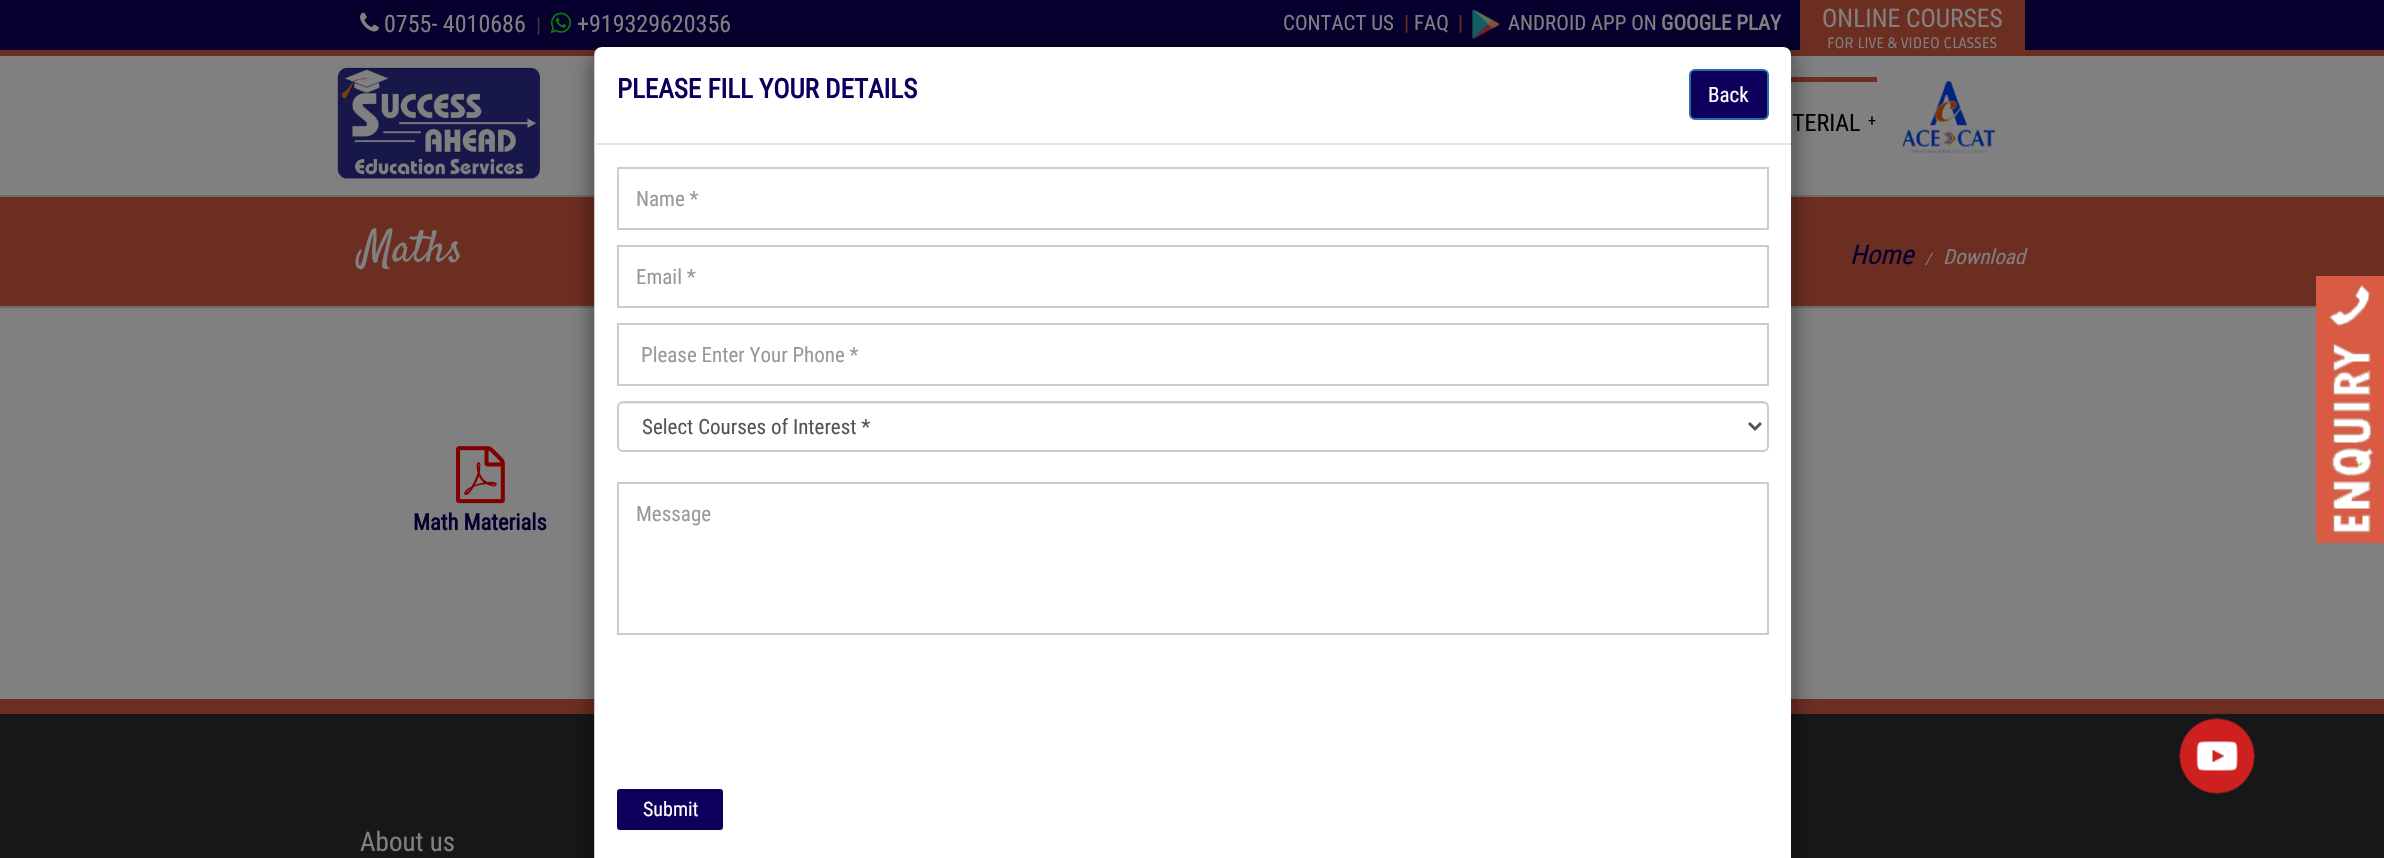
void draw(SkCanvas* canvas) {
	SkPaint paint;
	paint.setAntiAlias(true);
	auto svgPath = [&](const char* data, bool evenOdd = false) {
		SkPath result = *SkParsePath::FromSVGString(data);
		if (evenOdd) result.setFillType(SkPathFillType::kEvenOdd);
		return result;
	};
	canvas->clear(0xff07002e);
	paint.setColor(0xff6d2e22);
	canvas->drawRect(SkRect::MakeXYWH(0, 50, 2384, 6), paint);
	canvas->drawImageRect(SkImages::DeferredFromEncodedData(SkData::MakeFromFileName("img1.png")), SkRect::MakeXYWH(360, 12, 19, 20), SkSamplingOptions());
	SkFont f1(fontMgr->matchFamilyStyle("Roboto Condensed", SkFontStyle::Normal()), 24);
	f1.setSubpixel(true);
	paint.setColor(0xff808080);
	canvas->drawString("0755- 4010686", 384, 32, f1, paint);
	SkFont f2(fontMgr->matchFamilyStyle("Roboto Condensed", SkFontStyle::Normal()), 21);
	f2.setSubpixel(true);
	paint.setColor(0xff35373a);
	canvas->drawString("|", 536, 32, f2, paint);
	canvas->drawImageRect(SkImages::DeferredFromEncodedData(SkData::MakeFromFileName("img2.png")), SkRect::MakeXYWH(550, 12, 22, 22), SkSamplingOptions());
	paint.setColor(0xff808080);
	canvas->drawString("+919329620356", 577, 32, f1, paint);
	canvas->drawString("CONTACT US", 1283, 30, f2, paint);
	paint.setColor(0xff6d2e22);
	canvas->drawString("|", 1404, 30, f2, paint);
	paint.setColor(0xff808080);
	canvas->drawString("FAQ", 1414, 30, f2, paint);
	paint.setColor(0xff6d2e22);
	canvas->drawString("|", 1458, 30, f2, paint);
	canvas->drawImageRect(SkImages::DeferredFromEncodedData(SkData::MakeFromFileName("img3.png")), SkRect::MakeXYWH(1472, 9, 28, 31), SkSamplingOptions());
	paint.setColor(0xff808080);
	canvas->drawString("ANDROID APP ON", 1508, 30, f2, paint);
	SkFont f3(fontMgr->matchFamilyStyle("Roboto Condensed", SkFontStyle::Bold()), 21);
	f3.setSubpixel(true);
	canvas->drawString("GOOGLE PLAY", 1661, 30, f3, paint);
	paint.setColor(0xff6d2e22);
	canvas->drawRect(SkRect::MakeXYWH(1800, 0, 225, 50), paint);
	SkFont f4(fontMgr->matchFamilyStyle("Roboto Condensed", SkFontStyle::Normal()), 25.5);
	f4.setSubpixel(true);
	paint.setColor(0xff808080);
	canvas->drawString("ONLINE COURSES", 1822, 27, f4, paint);
	SkFont f5(fontMgr->matchFamilyStyle("Ruda", SkFontStyle::Normal()), 15);
	f5.setSubpixel(true);
	canvas->drawString("FOR LIVE & VIDEO CLASSES", 1827, 48, f5, paint);
	canvas->drawRect(SkRect::MakeXYWH(0, 56, 2384, 139), paint);
	paint.setColor(0xff6e6e6c);
	canvas->drawRect(SkRect::MakeXYWH(0, 195, 2384, 2), paint);
	paint.setColor(0xff6d2e22);
	canvas->drawRect(SkRect::MakeXYWH(1791, 77, 86, 5), paint);
	canvas->drawRect(SkRect::MakeXYWH(0, 197, 2384, 109), paint);
	paint.setColor(0xff6e6e6c);
	canvas->drawRect(SkRect::MakeXYWH(0, 306, 2368, 2), paint);
	paint.setColor(0xff808080);
	canvas->drawRect(SkRect::MakeXYWH(0, 308, 2384, 391), paint);
	paint.setColor(0xff161719);
	canvas->drawRect(SkRect::MakeXYWH(0, 714, 2384, 144), paint);
	paint.setColor(0xff6d2e22);
	canvas->drawRect(SkRect::MakeXYWH(0, 699, 2384, 15), paint);
	canvas->save();
	canvas->clipPath(svgPath("M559 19H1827V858H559ZM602 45H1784C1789 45 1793 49 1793 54V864C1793 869 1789 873 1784 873H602C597 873 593 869 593 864V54C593 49 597 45 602 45Z", true), true);
	paint.setColor(0x80000000);
	paint.setMaskFilter(SkMaskFilter::MakeBlur(kNormal_SkBlurStyle, 11));
	canvas->drawRoundRect(SkRect::MakeXYWH(593, 53, 1200, 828), 9, 9, paint);
	paint.setMaskFilter(nullptr);
	canvas->restore();
	paint.setColor(0xffffffff);
	canvas->drawPath(svgPath("M602 47H1783C1787.5 47 1791 50.5 1791 55V858H594V55C594 50.5 597.5 47 602 47Z"), paint);
	paint.setStroke(true);
	paint.setStrokeWidth(2);
	paint.setColor(0x33000000);
	canvas->drawRoundRect(SkRect::MakeXYWH(594, 46, 1198, 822), 8, 8, paint);
	paint.setStroke(false);
	paint.setColor(0xffe5e5e5);
	canvas->drawRect(SkRect::MakeXYWH(594, 143, 1197, 2), paint);
	SkFont f6(fontMgr->matchFamilyStyle("Roboto Condensed", SkFontStyle::Bold()), 27);
	f6.setSubpixel(true);
	paint.setColor(0xff0d005c);
	canvas->drawString("PLEASE FILL YOUR DETAILS", 617, 98, f6, paint);
	canvas->drawRoundRect(SkRect::MakeXYWH(1690, 70, 78, 49), 5, 5, paint);
	paint.setStroke(true);
	paint.setColor(0xff2e6da4);
	canvas->drawRoundRect(SkRect::MakeXYWH(1690, 70, 78, 49), 5, 5, paint);
	paint.setStroke(false);
	paint.setColor(0xffffffff);
	canvas->drawString("Back", 1708, 102, f2, paint);
	paint.setStroke(true);
	paint.setColor(0xffcccccc);
	canvas->drawRect(SkRect::MakeXYWH(618, 168, 1150, 61), paint);
	paint.setStroke(false);
	paint.setColor(0xff999999);
	canvas->drawString("Name *", 636, 206, f2, paint);
	paint.setStroke(true);
	paint.setColor(0xffcccccc);
	canvas->drawRect(SkRect::MakeXYWH(618, 246, 1150, 61), paint);
	paint.setStroke(false);
	paint.setColor(0xff999999);
	canvas->drawString("Email *", 636, 284, f2, paint);
	paint.setStroke(true);
	paint.setColor(0xffcccccc);
	canvas->drawRect(SkRect::MakeXYWH(618, 324, 1150, 61), paint);
	paint.setStroke(false);
	paint.setColor(0xff999999);
	canvas->drawString("Please Enter Your Phone *", 641, 362, f2, paint);
	paint.setColor(0xffececec);
	canvas->drawPath(svgPath("M622 404H1762C1765 404 1767 406 1767 408C1767 405 1765 402 1762 402H623C620 402 618 405 618 408C618 406 620 404 622 404Z"), paint);
	paint.setStroke(true);
	paint.setColor(0xffcccccc);
	canvas->drawRoundRect(SkRect::MakeXYWH(618, 402, 1150, 49), 5, 5, paint);
	paint.setStrokeWidth(3);
	paint.setColor(0xff555555);
	canvas->drawPath(svgPath("M1749 423L1755 429L1761 423"), paint);
	paint.setStroke(false);
	canvas->drawString("Select Courses of Interest *", 642, 434, f2, paint);
	paint.setStroke(true);
	paint.setStrokeWidth(2);
	paint.setColor(0xffcccccc);
	canvas->drawRect(SkRect::MakeXYWH(618, 483, 1150, 151), paint);
	paint.setStroke(false);
	paint.setColor(0xff999999);
	canvas->drawString("Message", 636, 521, f2, paint);
	paint.setColor(0xff0d005c);
	canvas->drawRoundRect(SkRect::MakeXYWH(617, 789, 106, 41), 3, 3, paint);
	SkFont f7(fontMgr->matchFamilyStyle("Roboto Condensed", SkFontStyle::Normal()), 20);
	f7.setSubpixel(true);
	paint.setColor(0xffffffff);
	canvas->drawString("Submit", 643, 816, f7, paint);
	canvas->drawImageRect(SkImages::DeferredFromEncodedData(SkData::MakeFromFileName("img4.png")), SkRect::MakeXYWH(337, 67, 203, 112), SkSamplingOptions());
	paint.setColor(0xff000000);
	canvas->drawString("TERIAL", 1792, 131, f1, paint);
	SkFont f8(fontMgr->matchFamilyStyle("Roboto Condensed", SkFontStyle::Normal()), 16);
	f8.setSubpixel(true);
	canvas->drawString("+", 1868, 126, f8, paint);
	canvas->drawImageRect(SkImages::DeferredFromEncodedData(SkData::MakeFromFileName("img5.png")), SkRect::MakeXYWH(1902, 81, 93, 72), SkSamplingOptions());
	SkFont f9(fontMgr->matchFamilyStyle("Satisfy", SkFontStyle::Normal()), 45);
	f9.setSubpixel(true);
	paint.setColor(0xff808080);
	canvas->drawString("Maths", 360, 261, f9, paint);
	SkFont f10(fontMgr->matchFamilyStyle("Roboto Condensed", SkFontStyle::Italic()), 27);
	f10.setSubpixel(true);
	paint.setColor(0xff07002e);
	canvas->drawString("Home", 1850, 264, f10, paint);
	SkFont f11(fontMgr->matchFamilyStyle("Roboto Condensed", SkFontStyle::Italic()), 16);
	f11.setSubpixel(true);
	paint.setColor(0xff808080);
	canvas->drawString("/", 1925, 264, f11, paint);
	SkFont f12(fontMgr->matchFamilyStyle("Roboto Condensed", SkFontStyle::Italic()), 21);
	f12.setSubpixel(true);
	canvas->drawString("Download", 1943, 264, f12, paint);
	canvas->drawImageRect(SkImages::DeferredFromEncodedData(SkData::MakeFromFileName("img6.png")), SkRect::MakeXYWH(456, 446, 49, 58), SkSamplingOptions());
	SkFont f13(fontMgr->matchFamilyStyle("Roboto Condensed", SkFontStyle::Bold()), 22.5);
	f13.setSubpixel(true);
	paint.setColor(0xff07002e);
	canvas->drawString("Math Materials", 413, 530, f13, paint);
	canvas->drawImageRect(SkImages::DeferredFromEncodedData(SkData::MakeFromFileName("img7.png")), SkRect::MakeXYWH(2316, 276, 68, 267), SkSamplingOptions());
	canvas->drawImageRect(SkImages::DeferredFromEncodedData(SkData::MakeFromFileName("img8.png")), SkRect::MakeXYWH(2179, 718, 76, 76), SkSamplingOptions());
	SkFont f14(fontMgr->matchFamilyStyle("Roboto Condensed", SkFontStyle::Normal()), 27);
	f14.setSubpixel(true);
	paint.setColor(0xff808080);
	canvas->drawString("About us", 360, 851, f14, paint);
}
